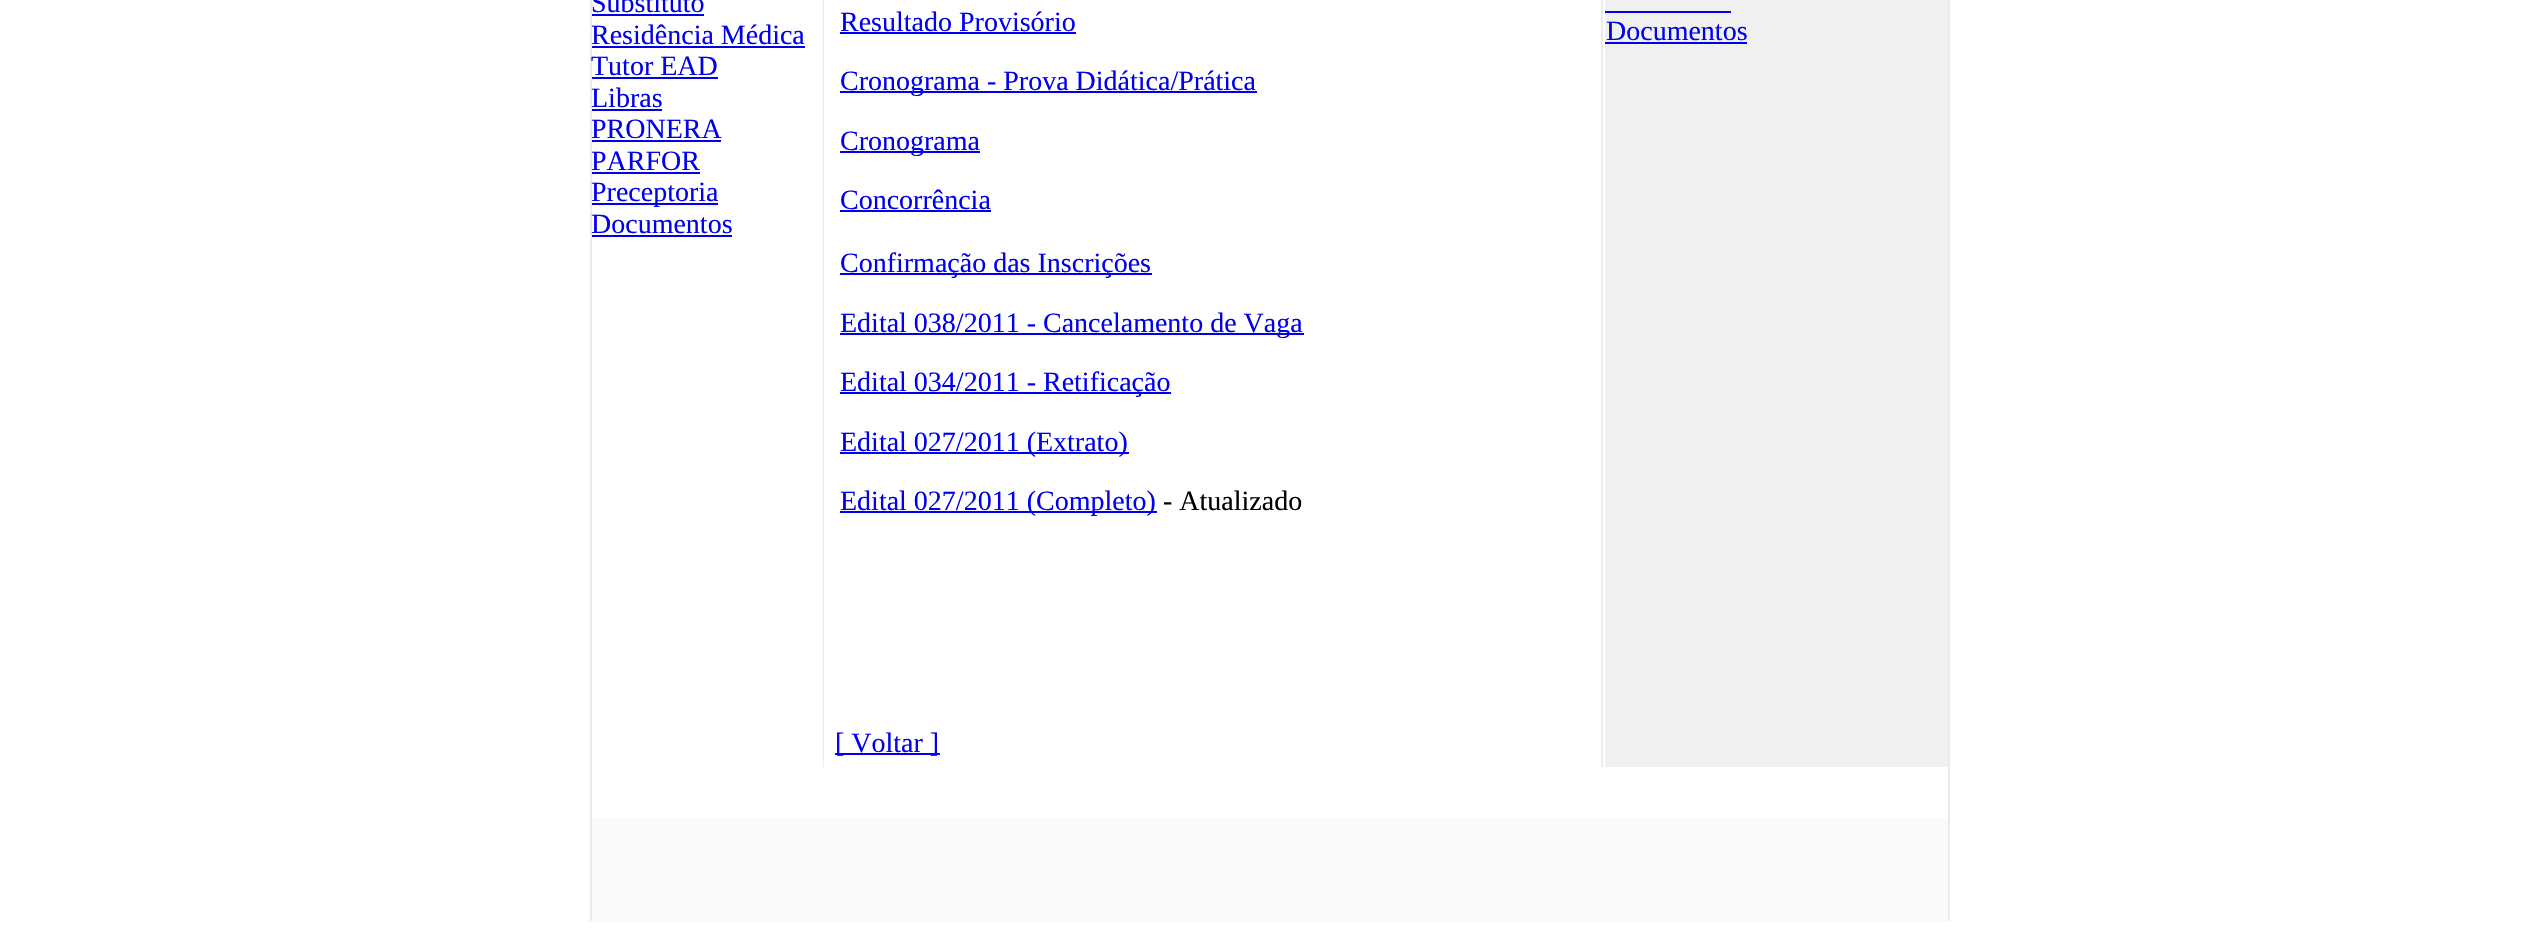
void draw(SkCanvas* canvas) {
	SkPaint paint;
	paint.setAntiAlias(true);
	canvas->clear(0xffffffff);
	paint.setColor(0xffebebeb);
	canvas->drawRect(SkRect::MakeXYWH(590, 0, 2, 921), paint);
	SkFont f1(fontMgr->matchFamilyStyle("Liberation Serif", SkFontStyle::Normal()), 28);
	f1.setSubpixel(true);
	paint.setColor(0xff0000ee);
	canvas->drawString("Substituto", 591, 12, f1, paint);
	canvas->drawRect(SkRect::MakeXYWH(592, 14, 112, 2), paint);
	canvas->drawString("Residência Médica", 591, 44, f1, paint);
	canvas->drawRect(SkRect::MakeXYWH(592, 46, 213, 2), paint);
	canvas->drawString("Tutor EAD", 591, 75, f1, paint);
	canvas->drawRect(SkRect::MakeXYWH(592, 77, 126, 2), paint);
	canvas->drawString("Libras", 591, 107, f1, paint);
	canvas->drawRect(SkRect::MakeXYWH(592, 109, 70, 2), paint);
	canvas->drawString("PRONERA", 591, 138, f1, paint);
	canvas->drawRect(SkRect::MakeXYWH(592, 140, 129, 2), paint);
	canvas->drawString("PARFOR", 591, 170, f1, paint);
	canvas->drawRect(SkRect::MakeXYWH(592, 172, 108, 2), paint);
	canvas->drawRect(SkRect::MakeXYWH(592, 203, 126, 2), paint);
	canvas->drawString("Preceptoria", 591, 201, f1, paint);
	canvas->drawString("Documentos", 591, 233, f1, paint);
	canvas->drawRect(SkRect::MakeXYWH(592, 235, 140, 2), paint);
	paint.setColor(0xffebebeb);
	canvas->drawRect(SkRect::MakeXYWH(823, 0, 1, 767), paint);
	paint.setColor(0xff0000ee);
	canvas->drawString("Resultado Provisório", 840, 31, f1, paint);
	canvas->drawRect(SkRect::MakeXYWH(840, 32, 236, 2), paint);
	canvas->drawRect(SkRect::MakeXYWH(840, 91, 417, 2), paint);
	canvas->drawString("Cronograma - Prova Didática/Prática", 840, 90, f1, paint);
	canvas->drawRect(SkRect::MakeXYWH(840, 151, 140, 2), paint);
	canvas->drawString("Cronograma", 840, 150, f1, paint);
	canvas->drawString("Concorrência", 840, 209, f1, paint);
	canvas->drawRect(SkRect::MakeXYWH(840, 210, 151, 2), paint);
	canvas->drawRect(SkRect::MakeXYWH(840, 273, 312, 2), paint);
	canvas->drawString("Confirmação das Inscrições", 840, 272, f1, paint);
	canvas->drawRect(SkRect::MakeXYWH(840, 333, 464, 2), paint);
	canvas->drawString("Edital 038/2011 - Cancelamento de Vaga", 840, 332, f1, paint);
	canvas->drawRect(SkRect::MakeXYWH(840, 392, 331, 2), paint);
	canvas->drawString("Edital 034/2011 - Retificação", 840, 391, f1, paint);
	canvas->drawRect(SkRect::MakeXYWH(840, 452, 289, 2), paint);
	canvas->drawString("Edital 027/2011 (Extrato)", 840, 451, f1, paint);
	canvas->drawRect(SkRect::MakeXYWH(840, 511, 317, 2), paint);
	canvas->drawString("Edital 027/2011 (Completo)", 840, 510, f1, paint);
	paint.setColor(0xff000000);
	canvas->drawString("- Atualizado", 1163, 510, f1, paint);
	paint.setColor(0xff0000ee);
	canvas->drawRect(SkRect::MakeXYWH(835, 753, 105, 2), paint);
	canvas->drawString("[ Voltar ]", 835, 752, f1, paint);
	paint.setColor(0xffebebeb);
	canvas->drawRect(SkRect::MakeXYWH(1601, 0, 2, 767), paint);
	paint.setColor(0xfff0f0f0);
	canvas->drawRect(SkRect::MakeXYWH(1605, 0, 343, 767), paint);
	paint.setColor(0xff0000ee);
	canvas->drawRect(SkRect::MakeXYWH(1605, 11, 126, 2), paint);
	canvas->drawString("Documentos", 1606, 40, f1, paint);
	canvas->drawRect(SkRect::MakeXYWH(1605, 42, 142, 2), paint);
	paint.setColor(0xfffafafa);
	canvas->drawRect(SkRect::MakeXYWH(592, 819, 1356, 102), paint);
	paint.setColor(0xffebebeb);
	canvas->drawRect(SkRect::MakeXYWH(1948, 0, 2, 921), paint);
}
